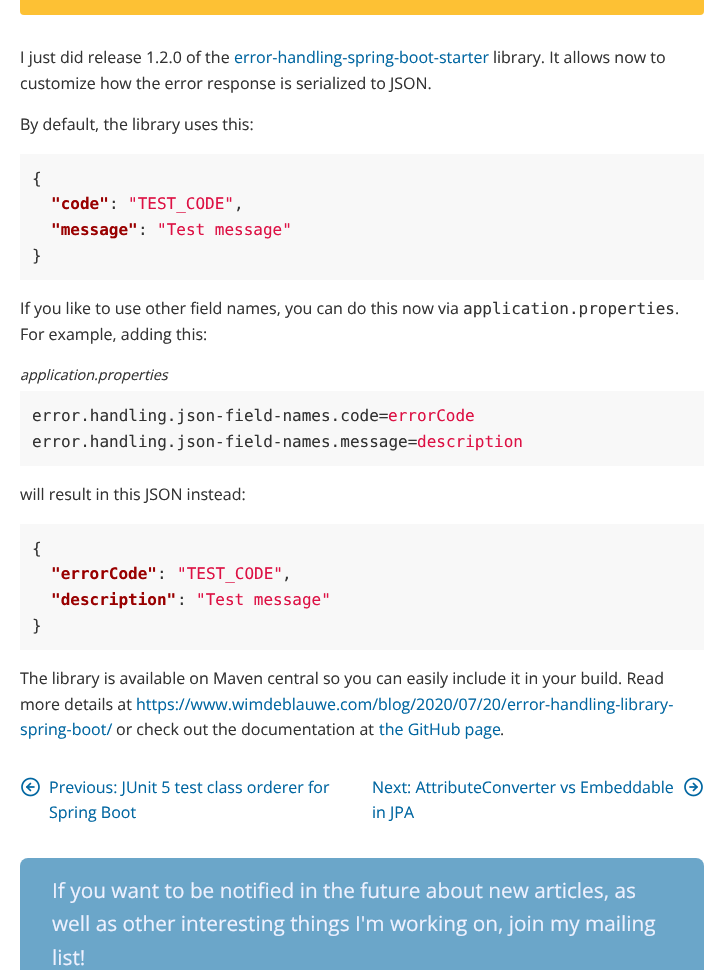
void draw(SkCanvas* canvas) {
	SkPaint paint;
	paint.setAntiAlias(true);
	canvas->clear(0xffffffff);
	paint.setColor(0xfffdc134);
	canvas->drawRoundRect(SkRect::MakeXYWH(20, -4, 684, 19), 4, 4, paint);
	SkFont f1(fontMgr->matchFamilyStyle("Open Sans", SkFontStyle::Normal()), 16);
	f1.setSubpixel(true);
	paint.setColor(0xff333333);
	canvas->drawString("I just did release 1.2.0 of the", 20, 63, f1, paint);
	paint.setColor(0xff0066a1);
	canvas->drawString("error-handling-spring-boot-starter", 234, 63, f1, paint);
	paint.setColor(0xff333333);
	canvas->drawString("library. It allows now to", 493, 63, f1, paint);
	canvas->drawString("customize how the error response is serialized to JSON.", 20, 89, f1, paint);
	canvas->drawString("By default, the library uses this:", 20, 130, f1, paint);
	paint.setColor(0xfff8f8f8);
	canvas->drawRect(SkRect::MakeXYWH(20, 154, 684, 126), paint);
	SkFont f2(fontMgr->matchFamilyStyle("DejaVu Sans Mono", SkFontStyle::Normal()), 16);
	f2.setSubpixel(true);
	paint.setColor(0xff333333);
	canvas->drawString("{", 32, 184, f2, paint);
	SkFont f3(fontMgr->matchFamilyStyle("DejaVu Sans Mono", SkFontStyle::Bold()), 16);
	f3.setSubpixel(true);
	paint.setColor(0xff990000);
	canvas->drawString("\"code\"", 51, 209, f3, paint);
	paint.setColor(0xff333333);
	canvas->drawString(":", 109, 209, f2, paint);
	paint.setColor(0xffdd1144);
	canvas->drawString("\"TEST_CODE\"", 128, 209, f2, paint);
	paint.setColor(0xff333333);
	canvas->drawString(",", 234, 209, f2, paint);
	paint.setColor(0xff990000);
	canvas->drawString("\"message\"", 51, 235, f3, paint);
	paint.setColor(0xff333333);
	canvas->drawString(":", 138, 235, f2, paint);
	paint.setColor(0xffdd1144);
	canvas->drawString("\"Test message\"", 157, 235, f2, paint);
	paint.setColor(0xff333333);
	canvas->drawString("}", 32, 261, f2, paint);
	canvas->drawString("If you like to use other field names, you can do this now via", 20, 314, f1, paint);
	canvas->drawString("application.properties", 463, 314, f2, paint);
	canvas->drawString(".", 675, 314, f1, paint);
	canvas->drawString("For example, adding this:", 20, 340, f1, paint);
	SkFont f4(fontMgr->matchFamilyStyle("Open Sans", SkFontStyle::Italic()), 14.4);
	f4.setSubpixel(true);
	canvas->drawString("application.properties", 20, 380, f4, paint);
	paint.setColor(0xfff8f8f8);
	canvas->drawRect(SkRect::MakeXYWH(20, 391, 684, 75), paint);
	paint.setColor(0xff333333);
	canvas->drawString("error.handling.json-field-names.code=", 32, 421, f2, paint);
	paint.setColor(0xffdd1144);
	canvas->drawString("errorCode", 388, 421, f2, paint);
	paint.setColor(0xff333333);
	canvas->drawString("error.handling.json-field-names.message=", 32, 447, f2, paint);
	paint.setColor(0xffdd1144);
	canvas->drawString("description", 417, 447, f2, paint);
	paint.setColor(0xff333333);
	canvas->drawString("will result in this JSON instead:", 20, 500, f1, paint);
	paint.setColor(0xfff8f8f8);
	canvas->drawRect(SkRect::MakeXYWH(20, 524, 684, 126), paint);
	paint.setColor(0xff333333);
	canvas->drawString("{", 32, 554, f2, paint);
	paint.setColor(0xff990000);
	canvas->drawString("\"errorCode\"", 51, 579, f3, paint);
	paint.setColor(0xff333333);
	canvas->drawString(":", 157, 579, f2, paint);
	paint.setColor(0xffdd1144);
	canvas->drawString("\"TEST_CODE\"", 177, 579, f2, paint);
	paint.setColor(0xff333333);
	canvas->drawString(",", 282, 579, f2, paint);
	paint.setColor(0xff990000);
	canvas->drawString("\"description\"", 51, 605, f3, paint);
	paint.setColor(0xff333333);
	canvas->drawString(":", 177, 605, f2, paint);
	paint.setColor(0xffdd1144);
	canvas->drawString("\"Test message\"", 196, 605, f2, paint);
	paint.setColor(0xff333333);
	canvas->drawString("}", 32, 631, f2, paint);
	canvas->drawString("The library is available on Maven central so you can easily include it in your build. Read", 20, 684, f1, paint);
	canvas->drawString("more details at", 20, 710, f1, paint);
	paint.setColor(0xff0066a1);
	canvas->drawString("https://www.wimdeblauwe.com/blog/2020/07/20/error-handling-library-", 136, 710, f1, paint);
	canvas->drawString("spring-boot/", 20, 735, f1, paint);
	paint.setColor(0xff333333);
	canvas->drawString("or check out the documentation at", 116, 735, f1, paint);
	paint.setColor(0xff0066a1);
	canvas->drawString("the GitHub page", 379, 735, f1, paint);
	paint.setColor(0xff333333);
	canvas->drawString(".", 500, 735, f1, paint);
	canvas->drawImageRect(SkImages::DeferredFromEncodedData(SkData::MakeFromFileName("img1.png")), SkRect::MakeXYWH(21, 777, 19, 20), SkSamplingOptions());
	paint.setColor(0xff0066a1);
	canvas->drawString("Previous: JUnit 5 test class orderer for", 49, 793, f1, paint);
	canvas->drawString("Spring Boot", 49, 818, f1, paint);
	canvas->drawString("Next: AttributeConverter vs Embeddable", 372, 793, f1, paint);
	canvas->drawImageRect(SkImages::DeferredFromEncodedData(SkData::MakeFromFileName("img2.png")), SkRect::MakeXYWH(684, 777, 19, 20), SkSamplingOptions());
	canvas->drawString("in JPA", 372, 818, f1, paint);
	paint.setColor(0xff6ba6c9);
	canvas->drawRoundRect(SkRect::MakeXYWH(20, 858, 684, 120), 8, 8, paint);
	SkFont f5(fontMgr->matchFamilyStyle("Open Sans", SkFontStyle::Normal()), 20.8);
	f5.setSubpixel(true);
	paint.setColor(0xffeef1ff);
	canvas->drawString("If you want to be notified in the future about new articles, as", 52, 898, f5, paint);
	canvas->drawString("well as other interesting things I'm working on, join my mailing", 52, 931, f5, paint);
	canvas->drawString("list!", 52, 965, f5, paint);
}
